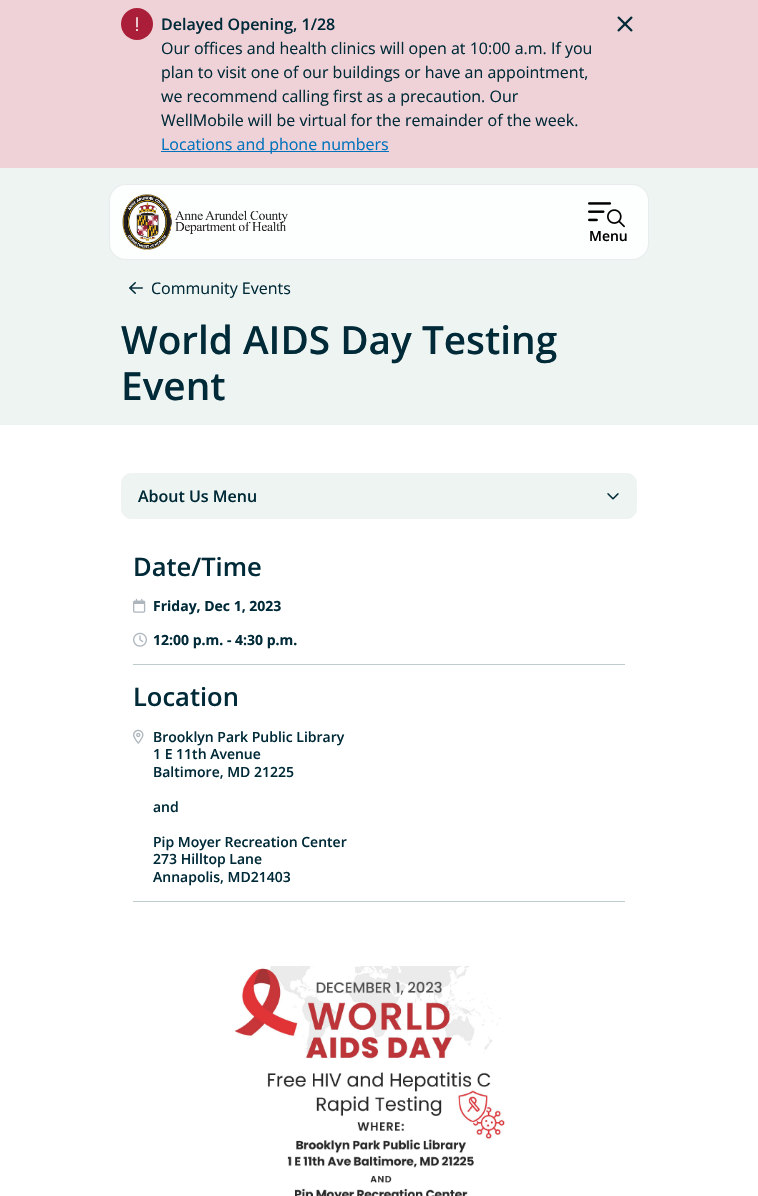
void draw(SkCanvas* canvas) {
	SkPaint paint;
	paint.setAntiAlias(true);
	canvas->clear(0xffffffff);
	paint.setColor(0xffeed2d7);
	canvas->drawRect(SkRect::MakeXYWH(0, 0, 758, 168), paint);
	paint.setColor(0xffab1e39);
	canvas->drawCircle(137, 24, 16, paint);
	canvas->drawImageRect(SkImages::DeferredFromEncodedData(SkData::MakeFromFileName("img1.png")), SkRect::MakeXYWH(136, 17, 2, 14), SkSamplingOptions());
	SkFont f1(fontMgr->matchFamilyStyle("Open Sans", SkFontStyle(600, SkFontStyle::kNormal_Width, SkFontStyle::kUpright_Slant)), 16);
	f1.setSubpixel(true);
	paint.setColor(0xff002a38);
	canvas->drawString("Delayed Opening, 1/28", 161, 30, f1, paint);
	canvas->drawImageRect(SkImages::DeferredFromEncodedData(SkData::MakeFromFileName("img2.png")), SkRect::MakeXYWH(617, 16, 16, 16), SkSamplingOptions());
	SkFont f2(fontMgr->matchFamilyStyle("Open Sans", SkFontStyle::Normal()), 16);
	f2.setSubpixel(true);
	canvas->drawString("Our offices and health clinics will open at 10:00 a.m. If you", 161, 54, f2, paint);
	canvas->drawString("plan to visit one of our buildings or have an appointment,", 161, 78, f2, paint);
	canvas->drawString("we recommend calling first as a precaution. Our", 161, 102, f2, paint);
	canvas->drawString("WellMobile will be virtual for the remainder of the week.", 161, 126, f2, paint);
	paint.setColor(0xff0072bc);
	canvas->drawRect(SkRect::MakeXYWH(161, 151, 228, 1), paint);
	canvas->drawString("Locations and phone numbers", 161, 150, f2, paint);
	paint.setColor(0xffeef4f1);
	canvas->drawRect(SkRect::MakeXYWH(0, 168, 758, 257), paint);
	paint.setStroke(true);
	paint.setStrokeWidth(1);
	paint.setColor(0xffe9ecef);
	canvas->drawRoundRect(SkRect::MakeXYWH(109.5, 184.5, 539, 75), 15.5, 15.5, paint);
	paint.setStroke(false);
	paint.setColor(0xfffdfefe);
	canvas->drawRoundRect(SkRect::MakeXYWH(110, 185, 538, 74), 16, 16, paint);
	canvas->drawImageRect(SkImages::DeferredFromEncodedData(SkData::MakeFromFileName("img3.png")), SkRect::MakeXYWH(122, 194, 166, 56), SkSamplingOptions());
	canvas->drawImageRect(SkImages::DeferredFromEncodedData(SkData::MakeFromFileName("img4.png")), SkRect::MakeXYWH(588, 202, 24, 20), SkSamplingOptions());
	canvas->drawImageRect(SkImages::DeferredFromEncodedData(SkData::MakeFromFileName("img5.png")), SkRect::MakeXYWH(607, 209, 18, 19), SkSamplingOptions());
	SkFont f3(fontMgr->matchFamilyStyle("Open Sans", SkFontStyle(600, SkFontStyle::kNormal_Width, SkFontStyle::kUpright_Slant)), 14);
	f3.setSubpixel(true);
	paint.setColor(0xff000000);
	canvas->drawString("Menu", 589, 241, f3, paint);
	canvas->drawImageRect(SkImages::DeferredFromEncodedData(SkData::MakeFromFileName("img6.png")), SkRect::MakeXYWH(129, 282, 14, 12), SkSamplingOptions());
	paint.setColor(0xff002a38);
	canvas->drawString("Community Events", 151, 294, f2, paint);
	SkFont f4(fontMgr->matchFamilyStyle("Open Sans", SkFontStyle(600, SkFontStyle::kNormal_Width, SkFontStyle::kUpright_Slant)), 38.75);
	f4.setSubpixel(true);
	canvas->drawString("World AIDS Day Testing", 121, 354, f4, paint);
	canvas->drawString("Event", 121, 400, f4, paint);
	paint.setColor(0xffeef4f1);
	canvas->drawRoundRect(SkRect::MakeXYWH(121.5, 473.5, 515, 45), 9.5, 9.5, paint);
	paint.setStroke(true);
	canvas->drawRoundRect(SkRect::MakeXYWH(121.5, 473.5, 515, 45), 9.5, 9.5, paint);
	paint.setStroke(false);
	paint.setColor(0xff002a38);
	canvas->drawString("About Us Menu", 138, 502, f1, paint);
	canvas->drawImageRect(SkImages::DeferredFromEncodedData(SkData::MakeFromFileName("img7.png")), SkRect::MakeXYWH(607, 493, 12, 7), SkSamplingOptions());
	SkFont f5(fontMgr->matchFamilyStyle("Open Sans", SkFontStyle(600, SkFontStyle::kNormal_Width, SkFontStyle::kUpright_Slant)), 25.5);
	f5.setSubpixel(true);
	canvas->drawString("Date/Time", 133, 576, f5, paint);
	canvas->drawImageRect(SkImages::DeferredFromEncodedData(SkData::MakeFromFileName("img8.png")), SkRect::MakeXYWH(133, 598, 13, 15), SkSamplingOptions());
	SkFont f6(fontMgr->matchFamilyStyle("Open Sans", SkFontStyle::Bold()), 14);
	f6.setSubpixel(true);
	canvas->drawString("Friday, Dec 1, 2023", 153, 611, f6, paint);
	canvas->drawImageRect(SkImages::DeferredFromEncodedData(SkData::MakeFromFileName("img9.png")), SkRect::MakeXYWH(133, 632, 14, 15), SkSamplingOptions());
	canvas->drawString("12:00 p.m. - 4:30 p.m.", 153, 645, f6, paint);
	paint.setColor(0xffbfcacd);
	canvas->drawRect(SkRect::MakeXYWH(133, 664, 492, 1), paint);
	paint.setColor(0xff002a38);
	canvas->drawString("Location", 133, 706, f5, paint);
	canvas->drawImageRect(SkImages::DeferredFromEncodedData(SkData::MakeFromFileName("img10.png")), SkRect::MakeXYWH(133, 729, 11, 15), SkSamplingOptions());
	canvas->drawString("Brooklyn Park Public Library", 153, 742, f3, paint);
	canvas->drawString("1 E 11th Avenue", 153, 759, f3, paint);
	canvas->drawString("Baltimore, MD 21225", 153, 777, f3, paint);
	canvas->drawString("and", 153, 812, f3, paint);
	canvas->drawString("Pip Moyer Recreation Center", 153, 847, f3, paint);
	canvas->drawString("273 Hilltop Lane", 153, 864, f3, paint);
	canvas->drawString("Annapolis, MD21403", 153, 882, f3, paint);
	paint.setColor(0xffbfcacd);
	canvas->drawRect(SkRect::MakeXYWH(133, 901, 492, 1), paint);
	canvas->drawImageRect(SkImages::DeferredFromEncodedData(SkData::MakeFromFileName("img11.png")), SkRect::MakeXYWH(233, 966, 272, 230), SkSamplingOptions());
}
